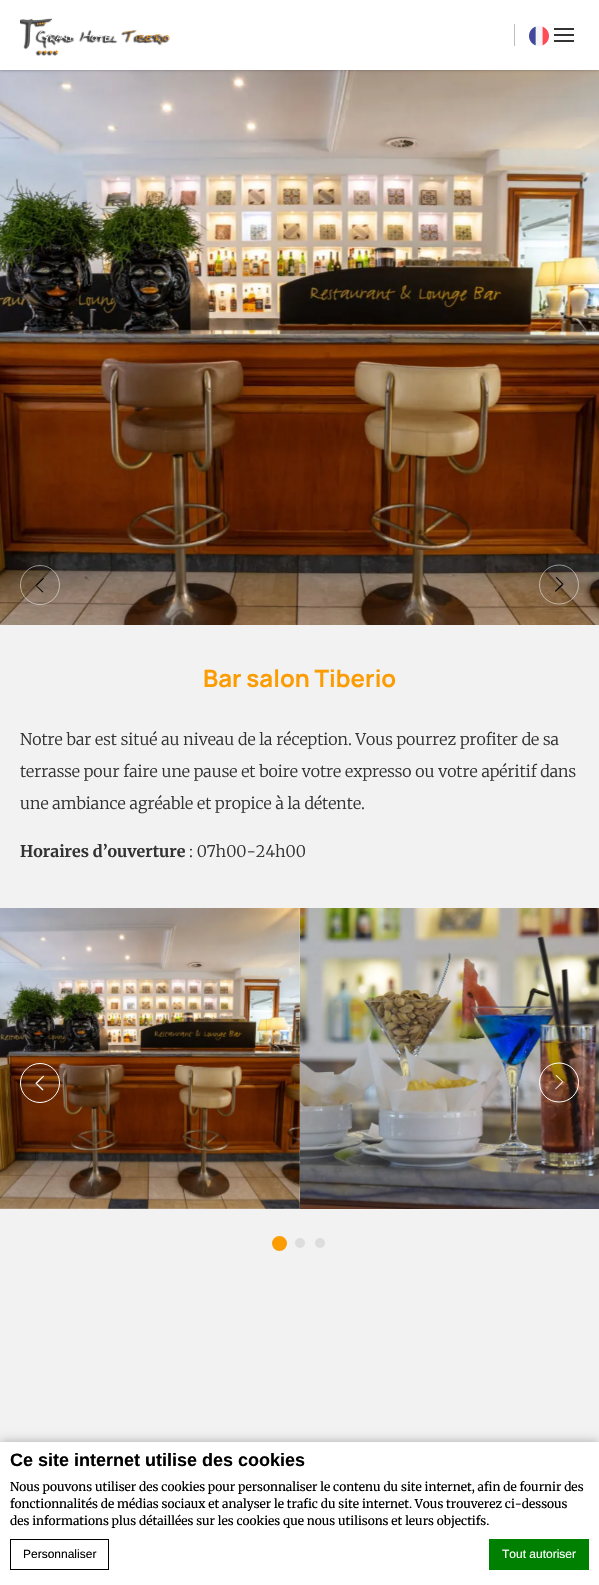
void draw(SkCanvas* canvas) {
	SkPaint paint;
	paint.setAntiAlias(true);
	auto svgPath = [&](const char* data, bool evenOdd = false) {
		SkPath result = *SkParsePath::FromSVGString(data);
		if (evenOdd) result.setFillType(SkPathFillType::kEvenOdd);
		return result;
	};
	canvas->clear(0xfff2f2f2);
	canvas->drawImageRect(SkImages::DeferredFromEncodedData(SkData::MakeFromFileName("img3.png")), SkRect::MakeXYWH(0, 70, 599, 555), SkSamplingOptions());
	paint.setColor(0x4d000000);
	paint.setMaskFilter(SkMaskFilter::MakeBlur(kNormal_SkBlurStyle, 1.5));
	canvas->drawRect(SkRect::MakeXYWH(0, 0, 599, 70), paint);
	paint.setMaskFilter(nullptr);
	paint.setColor(0xffffffff);
	canvas->drawRect(SkRect::MakeXYWH(0, 0, 599, 70), paint);
	canvas->drawImageRect(SkImages::DeferredFromEncodedData(SkData::MakeFromFileName("img1.png")), SkRect::MakeXYWH(20, 18, 150, 38), SkSamplingOptions());
	paint.setColor(0xffbabec3);
	canvas->drawRect(SkRect::MakeXYWH(514, 24, 1, 22), paint);
	canvas->drawImageRect(SkImages::DeferredFromEncodedData(SkData::MakeFromFileName("img2.png")), SkRect::MakeXYWH(529, 26, 20, 20), SkSamplingOptions());
	paint.setColor(0xff333333);
	canvas->drawRect(SkRect::MakeXYWH(554, 28, 20, 2), paint);
	canvas->drawRect(SkRect::MakeXYWH(554, 40, 20, 2), paint);
	canvas->drawRect(SkRect::MakeXYWH(554, 34, 20, 2), paint);
	paint.setStroke(true);
	paint.setStrokeWidth(1);
	paint.setColor(0x80ffffff);
	canvas->drawCircle(40, 585, 19.5, paint);
	paint.setStroke(false);
	paint.setColor(0xff000000);
	canvas->drawPath(svgPath("M36 585L43.5 592L42.5 592.5L35.5 585.5Z"), paint);
	canvas->drawPath(svgPath("M36 585L43.5 577.5L44 578.5L37 585.5Z"), paint);
	paint.setStroke(true);
	paint.setColor(0x80ffffff);
	canvas->drawPath(svgPath("M559 604C548 604 539.5 595.5 539.5 585C539.5 574 548 565 559 565C570 565 578.5 574 578.5 585C578.5 595.5 570 604 559 604Z"), paint);
	paint.setStroke(false);
	paint.setColor(0xff000000);
	canvas->drawPath(svgPath("M563 585L555.5 577.5L556.5 577L563.5 584Z"), paint);
	canvas->drawPath(svgPath("M563 585L555.5 592L555 591L562 584Z"), paint);
	SkFont f1(fontMgr->matchFamilyStyle("Manrope", SkFontStyle::Bold()), 24);
	f1.setSubpixel(true);
	paint.setColor(0xfffc9c03);
	canvas->drawString("Bar salon Tiberio", 203, 687, f1, paint);
	SkFont f2(fontMgr->matchFamilyStyle("Merriweather", SkFontStyle(300, SkFontStyle::kNormal_Width, SkFontStyle::kUpright_Slant)), 16);
	f2.setSubpixel(true);
	paint.setColor(0xff333333);
	canvas->drawString("Notre bar est situé au niveau de la réception. Vous pourrez profiter de sa", 20, 745, f2, paint);
	canvas->drawString("terrasse pour faire une pause et boire votre expresso ou votre apéritif dans", 20, 777, f2, paint);
	canvas->drawString("une ambiance agréable et propice à la détente.", 20, 809, f2, paint);
	SkFont f3(fontMgr->matchFamilyStyle("Merriweather", SkFontStyle::Bold()), 16);
	f3.setSubpixel(true);
	canvas->drawString("Horaires d’ouverture", 20, 857, f3, paint);
	canvas->drawString(": 07h00-24h00", 189, 857, f2, paint);
	paint.setColor(0xffebebeb);
	canvas->drawRect(SkRect::MakeXYWH(0, 908, 300, 301), paint);
	canvas->drawImageRect(SkImages::DeferredFromEncodedData(SkData::MakeFromFileName("img4.png")), SkRect::MakeXYWH(0, 908, 300, 301), SkSamplingOptions());
	canvas->drawImageRect(SkImages::DeferredFromEncodedData(SkData::MakeFromFileName("img5.png")), SkRect::MakeXYWH(300, 908, 299, 301), SkSamplingOptions());
	paint.setStroke(true);
	paint.setColor(0xffffffff);
	canvas->drawCircle(40, 1083, 19.5, paint);
	paint.setStroke(false);
	canvas->drawPath(svgPath("M36 1082.5L43.5 1089.5L42.5 1090.5L35.5 1083.5Z"), paint);
	canvas->drawPath(svgPath("M36 1082.5L43.5 1075.5L44 1076.5L37 1083.5Z"), paint);
	paint.setStroke(true);
	canvas->drawPath(svgPath("M559 1102C548 1102 539.5 1093.5 539.5 1082.5C539.5 1072 548 1063 559 1063C570 1063 578.5 1072 578.5 1082.5C578.5 1093.5 570 1102 559 1102Z"), paint);
	paint.setStroke(false);
	canvas->drawPath(svgPath("M563 1082.5L555.5 1075.5L556.5 1075L563.5 1082Z"), paint);
	canvas->drawPath(svgPath("M563 1082.5L555.5 1089.5L555 1089L562 1082Z"), paint);
	paint.setColor(0xfffc9c03);
	canvas->drawCircle(279.5, 1243.5, 7.5, paint);
	paint.setColor(0xffdddddd);
	canvas->drawCircle(300, 1243, 5, paint);
	canvas->drawCircle(320, 1243, 5, paint);
	paint.setColor(0x4d000000);
	paint.setMaskFilter(SkMaskFilter::MakeBlur(kNormal_SkBlurStyle, 5));
	canvas->drawRect(SkRect::MakeXYWH(0, 1442, 599, 143), paint);
	paint.setMaskFilter(nullptr);
	paint.setColor(0xffffffff);
	canvas->drawRect(SkRect::MakeXYWH(0, 1442, 599, 143), paint);
	SkFont f4(fontMgr->matchFamilyStyle("Liberation Sans", SkFontStyle::Bold()), 18);
	f4.setSubpixel(true);
	paint.setColor(0xff000000);
	canvas->drawString("Ce site internet utilise des cookies", 10, 1466, f4, paint);
	SkFont f5(fontMgr->matchFamilyStyle("Merriweather", SkFontStyle::Normal()), 12);
	f5.setSubpixel(true);
	canvas->drawString("Nous pouvons utiliser des cookies pour personnaliser le contenu du site internet, afin de fournir des", 10, 1491, f5, paint);
	canvas->drawString("fonctionnalités de médias sociaux et analyser le trafic du site internet. Vous trouverez ci-dessous", 10, 1508, f5, paint);
	canvas->drawString("des informations plus détaillées sur les cookies que nous utilisons et leurs objectifs.", 10, 1525, f5, paint);
	paint.setStroke(true);
	canvas->drawRect(SkRect::MakeXYWH(10.5, 1539.5, 98, 30), paint);
	SkFont f6(fontMgr->matchFamilyStyle("Liberation Sans", SkFontStyle::Normal()), 12);
	f6.setSubpixel(true);
	paint.setStroke(false);
	canvas->drawString("Personnaliser", 23, 1558, f6, paint);
	paint.setColor(0xff008000);
	canvas->drawRect(SkRect::MakeXYWH(489, 1539, 100, 31), paint);
	paint.setColor(0xffffffff);
	canvas->drawString("Tout autoriser", 502, 1558, f6, paint);
}
